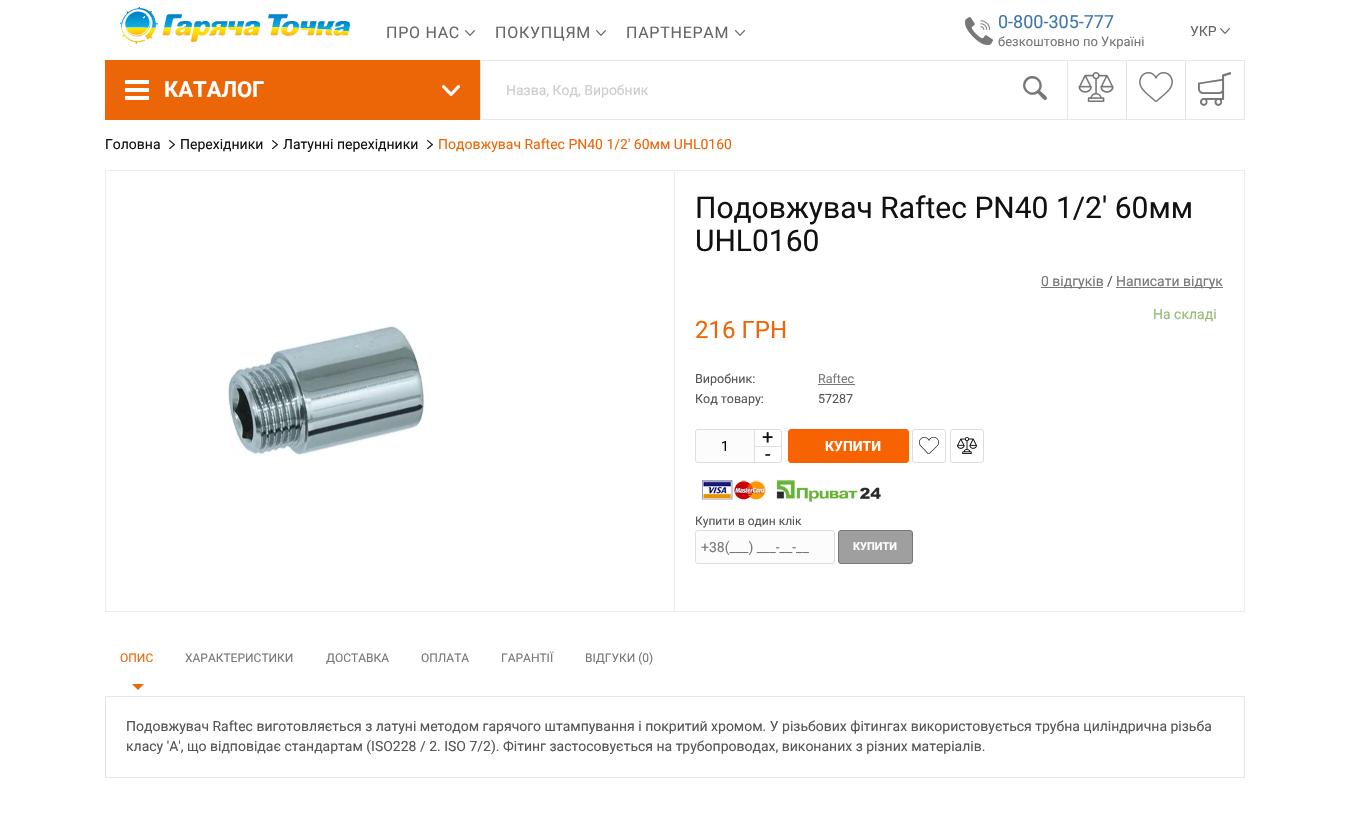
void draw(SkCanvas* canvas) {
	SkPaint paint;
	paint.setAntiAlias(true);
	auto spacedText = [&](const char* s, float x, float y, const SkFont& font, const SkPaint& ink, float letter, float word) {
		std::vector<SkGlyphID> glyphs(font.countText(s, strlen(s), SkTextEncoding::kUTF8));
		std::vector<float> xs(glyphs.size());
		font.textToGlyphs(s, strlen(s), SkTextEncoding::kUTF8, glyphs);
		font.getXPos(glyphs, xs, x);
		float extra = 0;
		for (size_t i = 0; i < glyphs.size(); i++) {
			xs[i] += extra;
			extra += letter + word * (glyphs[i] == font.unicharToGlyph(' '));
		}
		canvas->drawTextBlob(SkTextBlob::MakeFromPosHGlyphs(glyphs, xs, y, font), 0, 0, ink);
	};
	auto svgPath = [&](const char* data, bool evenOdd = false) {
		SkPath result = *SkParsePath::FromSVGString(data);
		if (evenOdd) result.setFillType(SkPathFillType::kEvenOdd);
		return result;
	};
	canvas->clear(0xffffffff);
	canvas->drawImageRect(SkImages::DeferredFromEncodedData(SkData::MakeFromFileName("img1.png")), SkRect::MakeXYWH(120, 7, 230, 37), SkSamplingOptions());
	SkFont f1(fontMgr->matchFamilyStyle("Roboto", SkFontStyle::Normal()), 16);
	f1.setSubpixel(true);
	paint.setColor(0xff666666);
	spacedText("ПРО НАС", 386, 38, f1, paint, 0.75, 0);
	canvas->drawImageRect(SkImages::DeferredFromEncodedData(SkData::MakeFromFileName("img2.png")), SkRect::MakeXYWH(465, 30, 10, 6), SkSamplingOptions());
	spacedText("ПОКУПЦЯМ", 495, 38, f1, paint, 0.75, 0);
	canvas->drawImageRect(SkImages::DeferredFromEncodedData(SkData::MakeFromFileName("img2.png")), SkRect::MakeXYWH(596, 30, 10, 6), SkSamplingOptions());
	spacedText("ПАРТНЕРАМ", 626, 38, f1, paint, 0.75, 0);
	canvas->drawImageRect(SkImages::DeferredFromEncodedData(SkData::MakeFromFileName("img2.png")), SkRect::MakeXYWH(735, 30, 10, 6), SkSamplingOptions());
	canvas->drawImageRect(SkImages::DeferredFromEncodedData(SkData::MakeFromFileName("img3.png")), SkRect::MakeXYWH(965, 17, 28, 28), SkSamplingOptions());
	SkFont f2(fontMgr->matchFamilyStyle("Roboto", SkFontStyle::Normal()), 18);
	f2.setSubpixel(true);
	paint.setColor(0xff3e77aa);
	canvas->drawString("0-800-305-777", 998, 28, f2, paint);
	SkFont f3(fontMgr->matchFamilyStyle("Roboto", SkFontStyle::Normal()), 13);
	f3.setSubpixel(true);
	paint.setColor(0xff777777);
	canvas->drawString("безкоштовно по Україні", 998, 46, f3, paint);
	SkFont f4(fontMgr->matchFamilyStyle("Roboto", SkFontStyle::Normal()), 14);
	f4.setSubpixel(true);
	paint.setColor(0xff666666);
	canvas->drawString("УКР", 1190, 36, f4, paint);
	canvas->drawImageRect(SkImages::DeferredFromEncodedData(SkData::MakeFromFileName("img2.png")), SkRect::MakeXYWH(1220, 28, 10, 6), SkSamplingOptions());
	paint.setColor(0xffec6608);
	canvas->drawRect(SkRect::MakeXYWH(105, 60, 375, 60), paint);
	canvas->drawImageRect(SkImages::DeferredFromEncodedData(SkData::MakeFromFileName("img4.png")), SkRect::MakeXYWH(125, 80, 24, 20), SkSamplingOptions());
	SkFont f5(fontMgr->matchFamilyStyle("Roboto", SkFontStyle::Bold()), 22);
	f5.setSubpixel(true);
	paint.setColor(0xffffffff);
	canvas->drawString("КАТАЛОГ", 164, 97, f5, paint);
	canvas->drawImageRect(SkImages::DeferredFromEncodedData(SkData::MakeFromFileName("img5.png")), SkRect::MakeXYWH(442, 85, 18, 11), SkSamplingOptions());
	paint.setStroke(true);
	paint.setStrokeWidth(1);
	paint.setColor(0xffe6e6e6);
	canvas->drawRect(SkRect::MakeXYWH(480.5, 60.5, 587, 59), paint);
	paint.setStroke(false);
	paint.setColor(0xffcccccc);
	canvas->drawString("Назва, Код, Виробник", 506, 95, f4, paint);
	canvas->drawImageRect(SkImages::DeferredFromEncodedData(SkData::MakeFromFileName("img6.png")), SkRect::MakeXYWH(1023, 76, 24, 24), SkSamplingOptions());
	paint.setColor(0xffe6e6e6);
	canvas->drawRect(SkRect::MakeXYWH(1067, 60, 60, 1), paint);
	canvas->drawRect(SkRect::MakeXYWH(1067, 119, 60, 1), paint);
	canvas->drawImageRect(SkImages::DeferredFromEncodedData(SkData::MakeFromFileName("img7.png")), SkRect::MakeXYWH(1078, 72, 36, 30), SkSamplingOptions());
	paint.setStroke(true);
	canvas->drawRect(SkRect::MakeXYWH(1126.5, 60.5, 59, 59), paint);
	canvas->drawImageRect(SkImages::DeferredFromEncodedData(SkData::MakeFromFileName("img8.png")), SkRect::MakeXYWH(1139, 72, 34, 30), SkSamplingOptions());
	canvas->drawRect(SkRect::MakeXYWH(1185.5, 60.5, 59, 59), paint);
	canvas->drawImageRect(SkImages::DeferredFromEncodedData(SkData::MakeFromFileName("img9.png")), SkRect::MakeXYWH(1198, 72, 33, 34), SkSamplingOptions());
	paint.setStroke(false);
	paint.setColor(0xff111111);
	canvas->drawString("Головна", 105, 149, f4, paint);
	canvas->drawImageRect(SkImages::DeferredFromEncodedData(SkData::MakeFromFileName("img10.png")), SkRect::MakeXYWH(169, 140, 6, 9), SkSamplingOptions());
	canvas->drawString("Перехідники", 180, 149, f4, paint);
	canvas->drawImageRect(SkImages::DeferredFromEncodedData(SkData::MakeFromFileName("img10.png")), SkRect::MakeXYWH(272, 140, 6, 9), SkSamplingOptions());
	canvas->drawString("Латунні перехідники", 283, 149, f4, paint);
	canvas->drawImageRect(SkImages::DeferredFromEncodedData(SkData::MakeFromFileName("img10.png")), SkRect::MakeXYWH(427, 140, 6, 9), SkSamplingOptions());
	paint.setColor(0xffec6608);
	canvas->drawString("Подовжувач Raftec PN40 1/2' 60мм UHL0160", 438, 149, f4, paint);
	paint.setStroke(true);
	paint.setColor(0xffededed);
	canvas->drawRect(SkRect::MakeXYWH(105.5, 170.5, 1139, 441), paint);
	paint.setStroke(false);
	canvas->drawRect(SkRect::MakeXYWH(674, 171, 1, 440), paint);
	canvas->drawImageRect(SkImages::DeferredFromEncodedData(SkData::MakeFromFileName("img11.png")), SkRect::MakeXYWH(227, 324, 198, 134), SkSamplingOptions());
	SkFont f6(fontMgr->matchFamilyStyle("Roboto", SkFontStyle::Normal()), 30);
	f6.setSubpixel(true);
	paint.setColor(0xff111111);
	canvas->drawString("Подовжувач Raftec PN40 1/2' 60мм", 695, 218, f6, paint);
	canvas->drawString("UHL0160", 695, 251, f6, paint);
	paint.setColor(0xff777777);
	canvas->drawRect(SkRect::MakeXYWH(1041, 287, 62, 1), paint);
	canvas->drawString("0 відгуків", 1041, 286, f4, paint);
	paint.setColor(0xff555555);
	canvas->drawString("/", 1107, 286, f4, paint);
	paint.setColor(0xff777777);
	canvas->drawRect(SkRect::MakeXYWH(1116, 287, 107, 1), paint);
	canvas->drawString("Написати відгук", 1116, 286, f4, paint);
	paint.setColor(0xff93bc74);
	canvas->drawString("На складі", 1153, 319, f4, paint);
	SkFont f7(fontMgr->matchFamilyStyle("Roboto", SkFontStyle::Normal()), 24);
	f7.setSubpixel(true);
	paint.setColor(0xffec6608);
	canvas->drawString("216 ГРН", 695, 338, f7, paint);
	SkFont f8(fontMgr->matchFamilyStyle("Roboto", SkFontStyle::Normal()), 12.5);
	f8.setSubpixel(true);
	paint.setColor(0xff555555);
	canvas->drawString("Виробник:", 695, 383, f8, paint);
	paint.setColor(0xff777777);
	canvas->drawString("Raftec", 818, 383, f8, paint);
	canvas->drawRect(SkRect::MakeXYWH(818, 384, 37, 1), paint);
	paint.setColor(0xff555555);
	canvas->drawString("Код товару:", 695, 403, f8, paint);
	canvas->drawString("57287", 818, 403, f8, paint);
	paint.setColor(0xfffcfcfc);
	canvas->drawPath(svgPath("M698 429.5H754.5V462.5H698C696.5 462.5 695.5 461.5 695.5 460V432C695.5 430.5 696.5 429.5 698 429.5Z"), paint);
	paint.setStroke(true);
	paint.setColor(0xffdddddd);
	canvas->drawPath(svgPath("M698 429.5H754.5V462.5H698C696.5 462.5 695.5 461.5 695.5 460V432C695.5 430.5 696.5 429.5 698 429.5Z"), paint);
	paint.setStroke(false);
	paint.setColor(0xff000000);
	canvas->drawString("1", 721, 451, f4, paint);
	paint.setStroke(true);
	paint.setColor(0xffdddddd);
	canvas->drawPath(svgPath("M754.5 429.5H779C780.5 429.5 781.5 430.5 781.5 432V446.5H754.5Z"), paint);
	SkFont f9(fontMgr->matchFamilyStyle("Roboto", SkFontStyle::Normal()), 20);
	f9.setSubpixel(true);
	paint.setStroke(false);
	paint.setColor(0xff111111);
	canvas->drawString("+", 762, 444, f9, paint);
	paint.setStroke(true);
	paint.setColor(0xffdddddd);
	canvas->drawPath(svgPath("M754.5 446.5H781.5V460C781.5 461.5 780.5 462.5 779 462.5H754.5Z"), paint);
	paint.setStroke(false);
	paint.setColor(0xff111111);
	canvas->drawString("-", 765, 461, f9, paint);
	paint.setColor(0xfff86302);
	canvas->drawRoundRect(SkRect::MakeXYWH(788.5, 429.5, 120, 33), 2.5, 2.5, paint);
	paint.setStroke(true);
	canvas->drawRoundRect(SkRect::MakeXYWH(788.5, 429.5, 120, 33), 2.5, 2.5, paint);
	SkFont f10(fontMgr->matchFamilyStyle("Roboto", SkFontStyle::Bold()), 14);
	f10.setSubpixel(true);
	paint.setStroke(false);
	paint.setColor(0xffffffff);
	canvas->drawString("КУПИТИ", 825, 451, f10, paint);
	paint.setStroke(true);
	paint.setColor(0xffdddddd);
	canvas->drawRoundRect(SkRect::MakeXYWH(912.5, 429.5, 33, 33), 2.5, 2.5, paint);
	canvas->drawImageRect(SkImages::DeferredFromEncodedData(SkData::MakeFromFileName("img12.png")), SkRect::MakeXYWH(919, 437, 20, 17), SkSamplingOptions());
	canvas->drawRoundRect(SkRect::MakeXYWH(950.5, 429.5, 33, 33), 2.5, 2.5, paint);
	canvas->drawImageRect(SkImages::DeferredFromEncodedData(SkData::MakeFromFileName("img13.png")), SkRect::MakeXYWH(957, 437, 20, 17), SkSamplingOptions());
	canvas->drawImageRect(SkImages::DeferredFromEncodedData(SkData::MakeFromFileName("img14.png")), SkRect::MakeXYWH(702, 480, 179, 22), SkSamplingOptions());
	SkFont f11(fontMgr->matchFamilyStyle("Roboto", SkFontStyle::Normal()), 12);
	f11.setSubpixel(true);
	paint.setStroke(false);
	paint.setColor(0xff555555);
	canvas->drawString("Купити в один клік", 695, 525, f11, paint);
	paint.setColor(0xfffcfcfc);
	canvas->drawRoundRect(SkRect::MakeXYWH(695.5, 530.5, 139, 33), 2.5, 2.5, paint);
	paint.setStroke(true);
	paint.setColor(0xffdddddd);
	canvas->drawRoundRect(SkRect::MakeXYWH(695.5, 530.5, 139, 33), 2.5, 2.5, paint);
	paint.setStroke(false);
	paint.setColor(0xff777777);
	canvas->drawString("+38(___) ___-__-__", 701, 552, f4, paint);
	paint.setColor(0xff9f9f9f);
	canvas->drawRoundRect(SkRect::MakeXYWH(838.5, 530.5, 74, 33), 2.5, 2.5, paint);
	paint.setStroke(true);
	paint.setColor(0xff777777);
	canvas->drawRoundRect(SkRect::MakeXYWH(838.5, 530.5, 74, 33), 2.5, 2.5, paint);
	SkFont f12(fontMgr->matchFamilyStyle("Roboto", SkFontStyle::Bold()), 11);
	f12.setSubpixel(true);
	paint.setStroke(false);
	paint.setColor(0xffffffff);
	canvas->drawString("КУПИТИ", 853, 550, f12, paint);
	paint.setColor(0xffec6608);
	canvas->drawString("ОПИС", 120, 662, f11, paint);
	canvas->drawPath(svgPath("M132 684H144L138 690Z"), paint);
	paint.setColor(0xff777777);
	canvas->drawString("ХАРАКТЕРИСТИКИ", 185, 662, f11, paint);
	canvas->drawString("ДОСТАВКА", 326, 662, f11, paint);
	canvas->drawString("ОПЛАТА", 421, 662, f11, paint);
	canvas->drawString("ГАРАНТІЇ", 501, 662, f11, paint);
	canvas->drawString("ВІДГУКИ (0)", 585, 662, f11, paint);
	paint.setStroke(true);
	paint.setColor(0xffe6e6e6);
	canvas->drawRect(SkRect::MakeXYWH(105.5, 696.5, 1139, 81), paint);
	paint.setStroke(false);
	paint.setColor(0xff555555);
	canvas->drawString("Подовжувач Raftec виготовляється з латуні методом гарячого штампування і покритий хромом. У різьбових фітингах використовується трубна циліндрична різьба", 126, 731, f4, paint);
	canvas->drawString("класу 'А', що відповідає стандартам (ISO228 / 2. ISO 7/2). Фітинг застосовується на трубопроводах, виконаних з різних матеріалів.", 126, 751, f4, paint);
}
